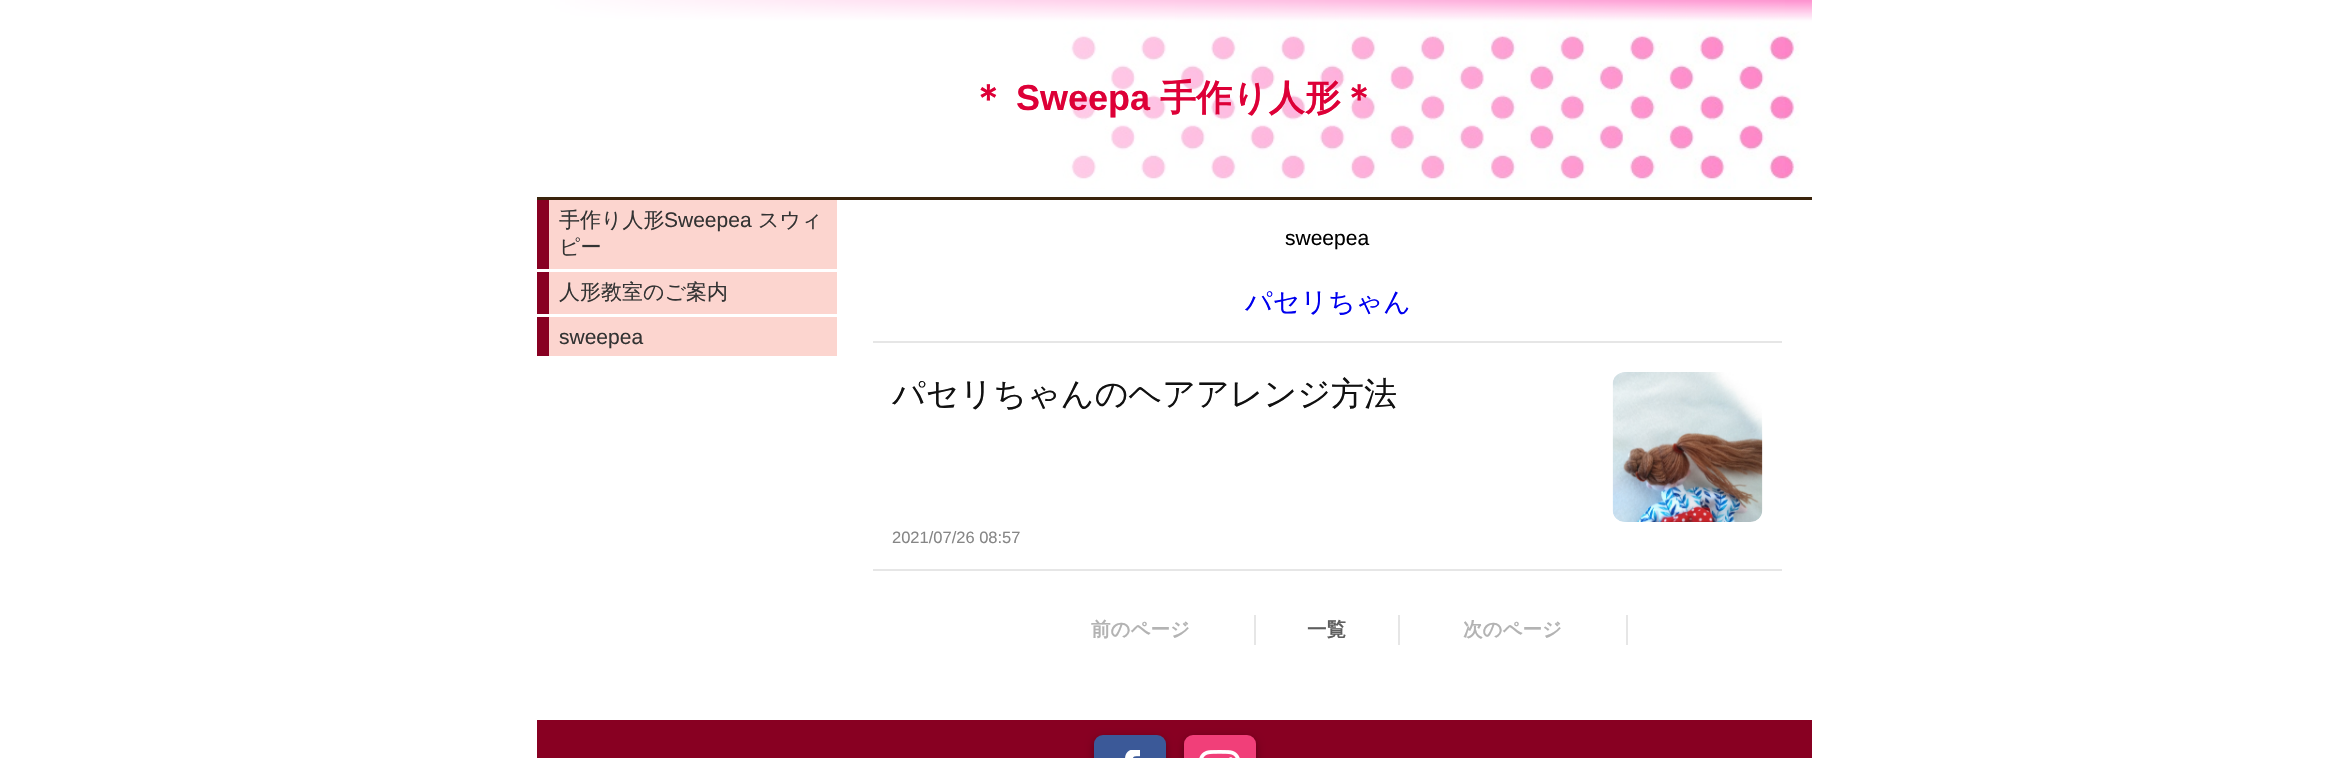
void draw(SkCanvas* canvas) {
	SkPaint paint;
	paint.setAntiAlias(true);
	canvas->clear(0xffffffff);
	canvas->drawImageRect(SkImages::DeferredFromEncodedData(SkData::MakeFromFileName("img1.png")), SkRect::MakeXYWH(545, 0, 1267, 189), SkSamplingOptions());
	paint.setColor(0xff3a230c);
	canvas->drawRect(SkRect::MakeXYWH(537, 197, 1275, 3), paint);
	{
		const SkColor colors[] = {0xffffffff, 0x00ffffff};
		const float stops[] = {0, 1};
		const SkPoint ends[] = {{537, 98}, {1812, 98}};
		paint.setShader(SkGradientShader::MakeLinear(ends, colors, stops, 2, SkTileMode::kClamp));
		paint.setAlpha(255);
	}
	canvas->drawRect(SkRect::MakeXYWH(545, 0, 1240, 188), paint);
	SkFont f1(fontMgr->matchFamilyStyle("WenQuanYi Zen Hei", SkFontStyle::Bold()), 36);
	f1.setSubpixel(true);
	paint.setShader(nullptr);
	paint.setColor(0xffdd0037);
	canvas->drawString("＊", 970, 110, f1, paint);
	SkFont f2(fontMgr->matchFamilyStyle("Liberation Sans", SkFontStyle::Bold()), 36);
	f2.setSubpixel(true);
	canvas->drawString("Sweepa", 1016, 110, f2, paint);
	canvas->drawString("手作り人形＊", 1160, 110, f1, paint);
	paint.setColor(0xfffcd5cf);
	canvas->drawRect(SkRect::MakeXYWH(549, 200, 288, 69), paint);
	paint.setColor(0xff880022);
	canvas->drawRect(SkRect::MakeXYWH(537, 200, 12, 69), paint);
	SkFont f3(fontMgr->matchFamilyStyle("WenQuanYi Zen Hei", SkFontStyle(500, SkFontStyle::kNormal_Width, SkFontStyle::kUpright_Slant)), 21);
	f3.setSubpixel(true);
	paint.setColor(0xff333333);
	canvas->drawString("手作り人形", 559, 227, f3, paint);
	SkFont f4(fontMgr->matchFamilyStyle("Liberation Sans", SkFontStyle::Normal()), 21);
	f4.setSubpixel(true);
	canvas->drawString("Sweepea", 664, 227, f4, paint);
	canvas->drawString("スウィ", 758, 227, f3, paint);
	canvas->drawString("ピー", 559, 254, f3, paint);
	paint.setColor(0xfffcd5cf);
	canvas->drawRect(SkRect::MakeXYWH(549, 272, 288, 42), paint);
	paint.setColor(0xff880022);
	canvas->drawRect(SkRect::MakeXYWH(537, 272, 12, 42), paint);
	paint.setColor(0xff333333);
	canvas->drawString("人形教室のご案内", 559, 299, f3, paint);
	paint.setColor(0xfffcd5cf);
	canvas->drawRect(SkRect::MakeXYWH(549, 317, 288, 39), paint);
	paint.setColor(0xff880022);
	canvas->drawRect(SkRect::MakeXYWH(537, 317, 12, 39), paint);
	paint.setColor(0xff333333);
	canvas->drawString("sweepea", 559, 344, f4, paint);
	paint.setColor(0xffe6e6e6);
	canvas->drawRect(SkRect::MakeXYWH(873, 341, 909, 2), paint);
	paint.setColor(0xff000000);
	canvas->drawString("sweepea", 1285, 245, f4, paint);
	SkFont f5(fontMgr->matchFamilyStyle("WenQuanYi Zen Hei", SkFontStyle(500, SkFontStyle::kNormal_Width, SkFontStyle::kUpright_Slant)), 27);
	f5.setSubpixel(true);
	paint.setColor(0xff0000ee);
	canvas->drawString("パセリちゃん", 1245, 311, f5, paint);
	paint.setColor(0xffe6e6e6);
	canvas->drawRect(SkRect::MakeXYWH(873, 569, 909, 2), paint);
	SkFont f6(fontMgr->matchFamilyStyle("WenQuanYi Zen Hei", SkFontStyle(500, SkFontStyle::kNormal_Width, SkFontStyle::kUpright_Slant)), 33);
	f6.setSubpixel(true);
	paint.setColor(0xff111111);
	canvas->drawString("パセリちゃんのヘアアレンジ方法", 892, 405, f6, paint);
	canvas->drawImageRect(SkImages::DeferredFromEncodedData(SkData::MakeFromFileName("img2.png")), SkRect::MakeXYWH(1612, 372, 151, 150), SkSamplingOptions());
	SkFont f7(fontMgr->matchFamilyStyle("Liberation Sans", SkFontStyle::Normal()), 16.5);
	f7.setSubpixel(true);
	paint.setColor(0xff868686);
	canvas->drawString("2021/07/26 08:57", 892, 543, f7, paint);
	paint.setColor(0xffe6e6e6);
	canvas->drawRect(SkRect::MakeXYWH(1254, 615, 2, 30), paint);
	SkFont f8(fontMgr->matchFamilyStyle("WenQuanYi Zen Hei", SkFontStyle::Bold()), 19.5);
	f8.setSubpixel(true);
	paint.setColor(0xffb3b3b3);
	canvas->drawString("前のページ", 1091, 636, f8, paint);
	paint.setColor(0xffe6e6e6);
	canvas->drawRect(SkRect::MakeXYWH(1398, 615, 2, 30), paint);
	paint.setColor(0xff5e5e5e);
	canvas->drawString("一覧", 1307, 636, f8, paint);
	paint.setColor(0xffe6e6e6);
	canvas->drawRect(SkRect::MakeXYWH(1626, 615, 2, 30), paint);
	paint.setColor(0xffb3b3b3);
	canvas->drawString("次のページ", 1463, 636, f8, paint);
	paint.setColor(0xff880022);
	canvas->drawRect(SkRect::MakeXYWH(537, 720, 1275, 38), paint);
	paint.setColor(0x59000000);
	paint.setMaskFilter(SkMaskFilter::MakeBlur(kNormal_SkBlurStyle, 4));
	canvas->drawRoundRect(SkRect::MakeXYWH(1094, 738, 72, 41), 9, 9, paint);
	paint.setMaskFilter(nullptr);
	paint.setColor(0xff3b5998);
	canvas->drawRoundRect(SkRect::MakeXYWH(1094, 735, 72, 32), 9, 9, paint);
	canvas->drawImageRect(SkImages::DeferredFromEncodedData(SkData::MakeFromFileName("img3.png")), SkRect::MakeXYWH(1125, 750, 15, 8), SkSamplingOptions());
	paint.setColor(0x59000000);
	paint.setMaskFilter(SkMaskFilter::MakeBlur(kNormal_SkBlurStyle, 4));
	canvas->drawRoundRect(SkRect::MakeXYWH(1184, 738, 72, 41), 9, 9, paint);
	paint.setMaskFilter(nullptr);
	paint.setColor(0xfff13f79);
	canvas->drawRoundRect(SkRect::MakeXYWH(1184, 735, 72, 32), 9, 9, paint);
	canvas->drawImageRect(SkImages::DeferredFromEncodedData(SkData::MakeFromFileName("img4.png")), SkRect::MakeXYWH(1199, 750, 41, 8), SkSamplingOptions());
}
